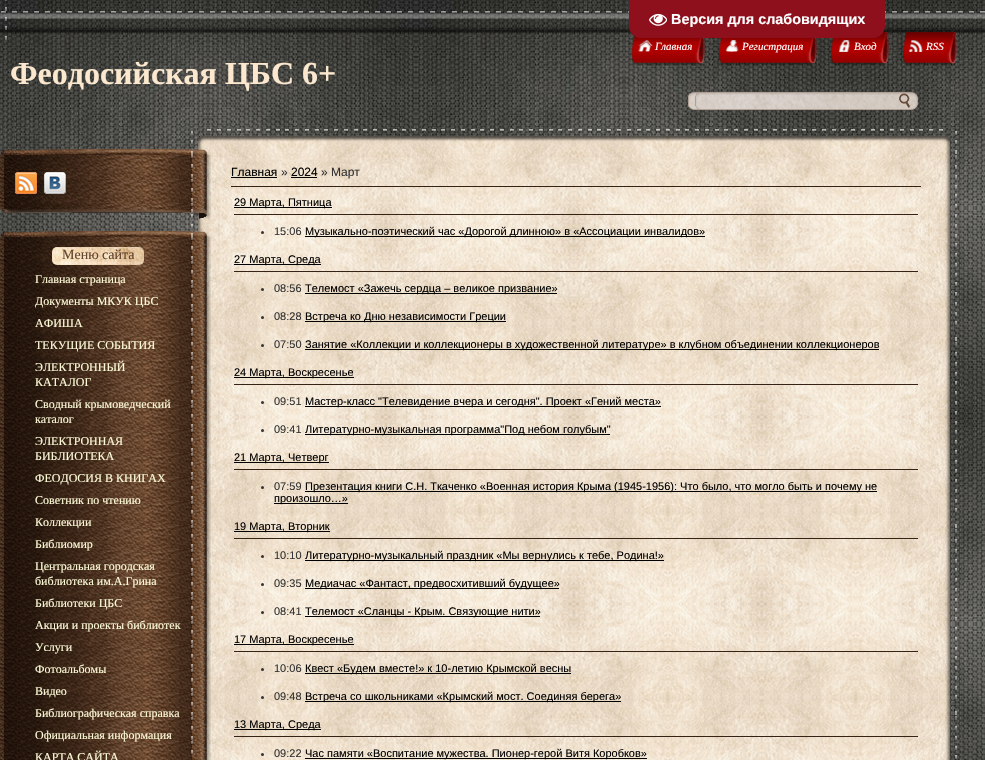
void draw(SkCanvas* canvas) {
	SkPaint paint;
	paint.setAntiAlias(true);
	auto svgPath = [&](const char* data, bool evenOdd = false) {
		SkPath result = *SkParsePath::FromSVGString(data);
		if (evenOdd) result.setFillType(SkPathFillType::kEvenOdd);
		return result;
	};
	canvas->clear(0xffffffff);
	canvas->drawImageRect(SkImages::DeferredFromEncodedData(SkData::MakeFromFileName("img1.png")), SkRect::MakeXYWH(0, 0, 985, 760), SkSamplingOptions());
	canvas->drawImageRect(SkImages::DeferredFromEncodedData(SkData::MakeFromFileName("img3.png")), SkRect::MakeXYWH(0, 0, 985, 40), SkSamplingOptions());
	canvas->drawImageRect(SkImages::DeferredFromEncodedData(SkData::MakeFromFileName("img4.png")), SkRect::MakeXYWH(631, 35, 7, 31), SkSamplingOptions());
	canvas->drawImageRect(SkImages::DeferredFromEncodedData(SkData::MakeFromFileName("img5.png")), SkRect::MakeXYWH(638, 37, 54, 29), SkSamplingOptions());
	canvas->drawImageRect(SkImages::DeferredFromEncodedData(SkData::MakeFromFileName("img13.png")), SkRect::MakeXYWH(837, 37, 39, 29), SkSamplingOptions());
	canvas->drawImageRect(SkImages::DeferredFromEncodedData(SkData::MakeFromFileName("img15.png")), SkRect::MakeXYWH(876, 32, 13, 34), SkSamplingOptions());
	paint.setColor(0xff8e101c);
	canvas->drawPath(svgPath("M629 0H885V26C885 32.5 879.5 38 873 38H641C634.5 38 629 32.5 629 26Z"), paint);
	canvas->drawImageRect(SkImages::DeferredFromEncodedData(SkData::MakeFromFileName("img2.png")), SkRect::MakeXYWH(649, 13, 18, 13), SkSamplingOptions());
	SkFont f1(fontMgr->matchFamilyStyle("Liberation Sans", SkFontStyle::Bold()), 14.4);
	f1.setSubpixel(true);
	paint.setColor(0xffffffff);
	canvas->drawString("Версия для слабовидящих", 671, 24, f1, paint);
	canvas->drawImageRect(SkImages::DeferredFromEncodedData(SkData::MakeFromFileName("img6.png")), SkRect::MakeXYWH(638, 40, 15, 12), SkSamplingOptions());
	SkFont f2(fontMgr->matchFamilyStyle("Liberation Serif", SkFontStyle::Italic()), 11);
	f2.setSubpixel(true);
	canvas->drawString("Главная", 655, 50, f2, paint);
	canvas->drawImageRect(SkImages::DeferredFromEncodedData(SkData::MakeFromFileName("img7.png")), SkRect::MakeXYWH(692, 38, 13, 28), SkSamplingOptions());
	canvas->drawImageRect(SkImages::DeferredFromEncodedData(SkData::MakeFromFileName("img8.png")), SkRect::MakeXYWH(718, 38, 7, 28), SkSamplingOptions());
	canvas->drawImageRect(SkImages::DeferredFromEncodedData(SkData::MakeFromFileName("img9.png")), SkRect::MakeXYWH(725, 38, 79, 28), SkSamplingOptions());
	canvas->drawImageRect(SkImages::DeferredFromEncodedData(SkData::MakeFromFileName("img10.png")), SkRect::MakeXYWH(725, 40, 14, 12), SkSamplingOptions());
	canvas->drawString("Регистрация", 742, 50, f2, paint);
	canvas->drawImageRect(SkImages::DeferredFromEncodedData(SkData::MakeFromFileName("img11.png")), SkRect::MakeXYWH(804, 38, 13, 28), SkSamplingOptions());
	canvas->drawImageRect(SkImages::DeferredFromEncodedData(SkData::MakeFromFileName("img12.png")), SkRect::MakeXYWH(830, 38, 7, 28), SkSamplingOptions());
	canvas->drawImageRect(SkImages::DeferredFromEncodedData(SkData::MakeFromFileName("img14.png")), SkRect::MakeXYWH(839, 40, 12, 12), SkSamplingOptions());
	canvas->drawString("Вход", 854, 50, f2, paint);
	canvas->drawImageRect(SkImages::DeferredFromEncodedData(SkData::MakeFromFileName("img16.png")), SkRect::MakeXYWH(902, 32, 7, 34), SkSamplingOptions());
	canvas->drawImageRect(SkImages::DeferredFromEncodedData(SkData::MakeFromFileName("img17.png")), SkRect::MakeXYWH(909, 32, 35, 34), SkSamplingOptions());
	canvas->drawImageRect(SkImages::DeferredFromEncodedData(SkData::MakeFromFileName("img18.png")), SkRect::MakeXYWH(909, 40, 14, 12), SkSamplingOptions());
	canvas->drawString("RSS", 926, 50, f2, paint);
	canvas->drawImageRect(SkImages::DeferredFromEncodedData(SkData::MakeFromFileName("img19.png")), SkRect::MakeXYWH(944, 32, 14, 34), SkSamplingOptions());
	SkFont f3(fontMgr->matchFamilyStyle("Liberation Serif", SkFontStyle::Bold()), 32);
	f3.setSubpixel(true);
	paint.setColor(0xfffbe8cf);
	canvas->drawString("Феодосийская ЦБС 6+", 10, 84, f3, paint);
	canvas->drawImageRect(SkImages::DeferredFromEncodedData(SkData::MakeFromFileName("img20.png")), SkRect::MakeXYWH(688, 92, 220, 18), SkSamplingOptions());
	canvas->drawImageRect(SkImages::DeferredFromEncodedData(SkData::MakeFromFileName("img21.png")), SkRect::MakeXYWH(695, 92, 223, 18), SkSamplingOptions());
	canvas->drawImageRect(SkImages::DeferredFromEncodedData(SkData::MakeFromFileName("img22.png")), SkRect::MakeXYWH(190, 129, 768, 15), SkSamplingOptions());
	canvas->drawImageRect(SkImages::DeferredFromEncodedData(SkData::MakeFromFileName("img23.png")), SkRect::MakeXYWH(190, 144, 768, 616), SkSamplingOptions());
	canvas->drawImageRect(SkImages::DeferredFromEncodedData(SkData::MakeFromFileName("img24.png")), SkRect::MakeXYWH(0, 149, 211, 6), SkSamplingOptions());
	canvas->drawImageRect(SkImages::DeferredFromEncodedData(SkData::MakeFromFileName("img25.png")), SkRect::MakeXYWH(0, 155, 211, 54), SkSamplingOptions());
	canvas->drawImageRect(SkImages::DeferredFromEncodedData(SkData::MakeFromFileName("img26.png")), SkRect::MakeXYWH(15, 172, 22, 22), SkSamplingOptions());
	canvas->drawImageRect(SkImages::DeferredFromEncodedData(SkData::MakeFromFileName("img27.png")), SkRect::MakeXYWH(44, 172, 22, 22), SkSamplingOptions());
	canvas->drawImageRect(SkImages::DeferredFromEncodedData(SkData::MakeFromFileName("img28.png")), SkRect::MakeXYWH(1, 209, 210, 10), SkSamplingOptions());
	canvas->drawImageRect(SkImages::DeferredFromEncodedData(SkData::MakeFromFileName("img29.png")), SkRect::MakeXYWH(0, 231, 211, 6), SkSamplingOptions());
	canvas->drawImageRect(SkImages::DeferredFromEncodedData(SkData::MakeFromFileName("img30.png")), SkRect::MakeXYWH(0, 237, 211, 523), SkSamplingOptions());
	canvas->drawImageRect(SkImages::DeferredFromEncodedData(SkData::MakeFromFileName("img31.png")), SkRect::MakeXYWH(52, 247, 92, 18), SkSamplingOptions());
	SkFont f4(fontMgr->matchFamilyStyle("Liberation Serif", SkFontStyle::Normal()), 14);
	f4.setSubpixel(true);
	paint.setColor(0xff5f422b);
	canvas->drawString("Меню сайта", 62, 259, f4, paint);
	SkFont f5(fontMgr->matchFamilyStyle("Liberation Serif", SkFontStyle::Normal()), 12);
	f5.setSubpixel(true);
	paint.setColor(0xfffcfad7);
	canvas->drawString("Главная страница", 35, 283, f5, paint);
	canvas->drawString("Документы МКУК ЦБС", 35, 305, f5, paint);
	canvas->drawString("АФИША", 35, 327, f5, paint);
	canvas->drawString("ТЕКУЩИЕ СОБЫТИЯ", 35, 349, f5, paint);
	canvas->drawString("ЭЛЕКТРОННЫЙ", 35, 371, f5, paint);
	canvas->drawString("КАТАЛОГ", 35, 386, f5, paint);
	canvas->drawString("Сводный крымоведческий", 35, 408, f5, paint);
	canvas->drawString("каталог", 35, 423, f5, paint);
	canvas->drawString("ЭЛЕКТРОННАЯ", 35, 445, f5, paint);
	canvas->drawString("БИБЛИОТЕКА", 35, 460, f5, paint);
	canvas->drawString("ФЕОДОСИЯ В КНИГАХ", 35, 482, f5, paint);
	canvas->drawString("Советник по чтению", 35, 504, f5, paint);
	canvas->drawString("Коллекции", 35, 526, f5, paint);
	canvas->drawString("Библиомир", 35, 548, f5, paint);
	canvas->drawString("Центральная городская", 35, 570, f5, paint);
	canvas->drawString("библиотека им.А.Грина", 35, 585, f5, paint);
	canvas->drawString("Библиотеки ЦБС", 35, 607, f5, paint);
	canvas->drawString("Акции и проекты библиотек", 35, 629, f5, paint);
	canvas->drawString("Услуги", 35, 651, f5, paint);
	canvas->drawString("Фотоальбомы", 35, 673, f5, paint);
	canvas->drawString("Видео", 35, 695, f5, paint);
	canvas->drawString("Библиографическая справка", 35, 717, f5, paint);
	canvas->drawString("Официальная информация", 35, 739, f5, paint);
	canvas->drawString("КАРТА САЙТА", 35, 761, f5, paint);
	SkFont f6(fontMgr->matchFamilyStyle("Liberation Sans", SkFontStyle::Normal()), 12);
	f6.setSubpixel(true);
	paint.setColor(0xff000000);
	canvas->drawString("Главная", 231, 176, f6, paint);
	canvas->drawRect(SkRect::MakeXYWH(231, 177, 46, 1), paint);
	paint.setColor(0xff333333);
	canvas->drawString("»", 281, 176, f6, paint);
	paint.setColor(0xff000000);
	canvas->drawString("2024", 291, 176, f6, paint);
	canvas->drawRect(SkRect::MakeXYWH(291, 177, 26, 1), paint);
	paint.setColor(0xff333333);
	canvas->drawString("» Март", 321, 176, f6, paint);
	paint.setColor(0xff362316);
	canvas->drawRect(SkRect::MakeXYWH(231, 186, 690, 1), paint);
	paint.setColor(0xff000000);
	canvas->drawRect(SkRect::MakeXYWH(234, 207, 98, 1), paint);
	SkFont f7(fontMgr->matchFamilyStyle("Liberation Sans", SkFontStyle::Normal()), 11);
	f7.setSubpixel(true);
	canvas->drawString("29 Марта, Пятница", 234, 206, f7, paint);
	paint.setColor(0xff362316);
	canvas->drawRect(SkRect::MakeXYWH(234, 214, 684, 1), paint);
	paint.setColor(0xff333333);
	canvas->drawCircle(262.5, 232.5, 1.5, paint);
	canvas->drawString("15:06", 274, 235, f7, paint);
	paint.setColor(0xff000000);
	canvas->drawRect(SkRect::MakeXYWH(305, 236, 400, 1), paint);
	canvas->drawString("Музыкально-поэтический час «Дорогой длинною» в «Ассоциации инвалидов»", 305, 235, f7, paint);
	canvas->drawRect(SkRect::MakeXYWH(234, 264, 87, 1), paint);
	canvas->drawString("27 Марта, Среда", 234, 263, f7, paint);
	paint.setColor(0xff362316);
	canvas->drawRect(SkRect::MakeXYWH(234, 271, 684, 1), paint);
	paint.setColor(0xff333333);
	canvas->drawCircle(262.5, 289.5, 1.5, paint);
	canvas->drawString("08:56", 274, 292, f7, paint);
	paint.setColor(0xff000000);
	canvas->drawRect(SkRect::MakeXYWH(305, 293, 252, 1), paint);
	canvas->drawString("Телемост «Зажечь сердца – великое призвание»", 305, 292, f7, paint);
	paint.setColor(0xff333333);
	canvas->drawCircle(262.5, 317.5, 1.5, paint);
	canvas->drawString("08:28", 274, 320, f7, paint);
	paint.setColor(0xff000000);
	canvas->drawRect(SkRect::MakeXYWH(305, 321, 201, 1), paint);
	canvas->drawString("Встреча ко Дню независимости Греции", 305, 320, f7, paint);
	paint.setColor(0xff333333);
	canvas->drawCircle(262.5, 345.5, 1.5, paint);
	canvas->drawString("07:50", 274, 348, f7, paint);
	paint.setColor(0xff000000);
	canvas->drawRect(SkRect::MakeXYWH(305, 349, 574, 1), paint);
	canvas->drawString("Занятие «Коллекции и коллекционеры в художественной литературе» в клубном объединении коллекционеров", 305, 348, f7, paint);
	canvas->drawRect(SkRect::MakeXYWH(234, 377, 120, 1), paint);
	canvas->drawString("24 Марта, Воскресенье", 234, 376, f7, paint);
	paint.setColor(0xff362316);
	canvas->drawRect(SkRect::MakeXYWH(234, 384, 684, 1), paint);
	paint.setColor(0xff333333);
	canvas->drawCircle(262.5, 402.5, 1.5, paint);
	canvas->drawString("09:51", 274, 405, f7, paint);
	paint.setColor(0xff000000);
	canvas->drawRect(SkRect::MakeXYWH(305, 406, 356, 1), paint);
	canvas->drawString("Мастер-класс \"Телевидение вчера и сегодня\". Проект «Гений места»", 305, 405, f7, paint);
	paint.setColor(0xff333333);
	canvas->drawCircle(262.5, 430.5, 1.5, paint);
	canvas->drawString("09:41", 274, 433, f7, paint);
	paint.setColor(0xff000000);
	canvas->drawRect(SkRect::MakeXYWH(305, 434, 305, 1), paint);
	canvas->drawString("Литературно-музыкальная программа\"Под небом голубым\"", 305, 433, f7, paint);
	canvas->drawRect(SkRect::MakeXYWH(234, 462, 95, 1), paint);
	canvas->drawString("21 Марта, Четверг", 234, 461, f7, paint);
	paint.setColor(0xff362316);
	canvas->drawRect(SkRect::MakeXYWH(234, 469, 684, 1), paint);
	paint.setColor(0xff333333);
	canvas->drawCircle(262.5, 487.5, 1.5, paint);
	canvas->drawString("07:59", 274, 490, f7, paint);
	paint.setColor(0xff000000);
	canvas->drawRect(SkRect::MakeXYWH(305, 491, 572, 1), paint);
	canvas->drawString("Презентация книги С.Н. Ткаченко «Военная история Крыма (1945-1956): Что было, что могло быть и почему не", 305, 490, f7, paint);
	canvas->drawRect(SkRect::MakeXYWH(274, 503, 74, 1), paint);
	canvas->drawString("произошло…»", 274, 502, f7, paint);
	canvas->drawRect(SkRect::MakeXYWH(234, 531, 96, 1), paint);
	canvas->drawString("19 Марта, Вторник", 234, 530, f7, paint);
	paint.setColor(0xff362316);
	canvas->drawRect(SkRect::MakeXYWH(234, 538, 684, 1), paint);
	paint.setColor(0xff333333);
	canvas->drawCircle(262.5, 556.5, 1.5, paint);
	canvas->drawString("10:10", 274, 559, f7, paint);
	paint.setColor(0xff000000);
	canvas->drawRect(SkRect::MakeXYWH(305, 560, 359, 1), paint);
	canvas->drawString("Литературно-музыкальный праздник «Мы вернулись к тебе, Родина!»", 305, 559, f7, paint);
	paint.setColor(0xff333333);
	canvas->drawCircle(262.5, 584.5, 1.5, paint);
	canvas->drawString("09:35", 274, 587, f7, paint);
	paint.setColor(0xff000000);
	canvas->drawRect(SkRect::MakeXYWH(305, 588, 254, 1), paint);
	canvas->drawString("Медиачас «Фантаст, предвосхитивший будущее»", 305, 587, f7, paint);
	paint.setColor(0xff333333);
	canvas->drawCircle(262.5, 612.5, 1.5, paint);
	canvas->drawString("08:41", 274, 615, f7, paint);
	paint.setColor(0xff000000);
	canvas->drawRect(SkRect::MakeXYWH(305, 616, 235, 1), paint);
	canvas->drawString("Телемост «Сланцы - Крым. Связующие нити»", 305, 615, f7, paint);
	canvas->drawRect(SkRect::MakeXYWH(234, 644, 120, 1), paint);
	canvas->drawString("17 Марта, Воскресенье", 234, 643, f7, paint);
	paint.setColor(0xff362316);
	canvas->drawRect(SkRect::MakeXYWH(234, 651, 684, 1), paint);
	paint.setColor(0xff333333);
	canvas->drawCircle(262.5, 669.5, 1.5, paint);
	canvas->drawString("10:06", 274, 672, f7, paint);
	paint.setColor(0xff000000);
	canvas->drawRect(SkRect::MakeXYWH(305, 673, 266, 1), paint);
	canvas->drawString("Квест «Будем вместе!» к 10-летию Крымской весны", 305, 672, f7, paint);
	paint.setColor(0xff333333);
	canvas->drawCircle(262.5, 697.5, 1.5, paint);
	canvas->drawString("09:48", 274, 700, f7, paint);
	paint.setColor(0xff000000);
	canvas->drawRect(SkRect::MakeXYWH(305, 701, 316, 1), paint);
	canvas->drawString("Встреча со школьниками «Крымский мост. Соединяя берега»", 305, 700, f7, paint);
	canvas->drawRect(SkRect::MakeXYWH(234, 729, 87, 1), paint);
	canvas->drawString("13 Марта, Среда", 234, 728, f7, paint);
	paint.setColor(0xff362316);
	canvas->drawRect(SkRect::MakeXYWH(234, 736, 684, 1), paint);
	paint.setColor(0xff333333);
	canvas->drawCircle(262.5, 754.5, 1.5, paint);
	canvas->drawString("09:22", 274, 757, f7, paint);
	paint.setColor(0xff000000);
	canvas->drawRect(SkRect::MakeXYWH(305, 758, 342, 1), paint);
	canvas->drawString("Час памяти «Воспитание мужества. Пионер-герой Витя Коробков»", 305, 757, f7, paint);
}
